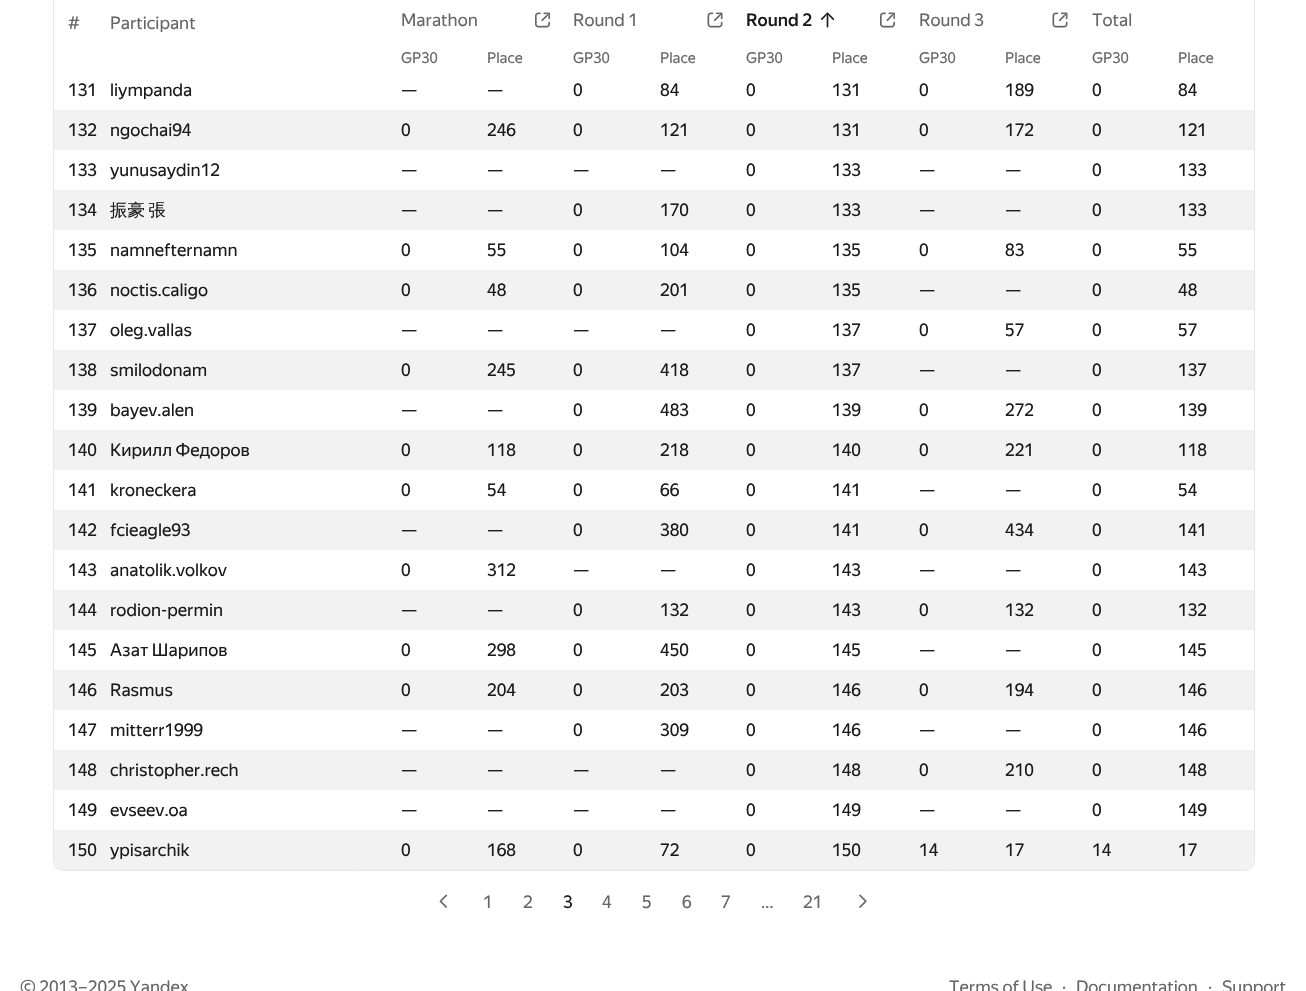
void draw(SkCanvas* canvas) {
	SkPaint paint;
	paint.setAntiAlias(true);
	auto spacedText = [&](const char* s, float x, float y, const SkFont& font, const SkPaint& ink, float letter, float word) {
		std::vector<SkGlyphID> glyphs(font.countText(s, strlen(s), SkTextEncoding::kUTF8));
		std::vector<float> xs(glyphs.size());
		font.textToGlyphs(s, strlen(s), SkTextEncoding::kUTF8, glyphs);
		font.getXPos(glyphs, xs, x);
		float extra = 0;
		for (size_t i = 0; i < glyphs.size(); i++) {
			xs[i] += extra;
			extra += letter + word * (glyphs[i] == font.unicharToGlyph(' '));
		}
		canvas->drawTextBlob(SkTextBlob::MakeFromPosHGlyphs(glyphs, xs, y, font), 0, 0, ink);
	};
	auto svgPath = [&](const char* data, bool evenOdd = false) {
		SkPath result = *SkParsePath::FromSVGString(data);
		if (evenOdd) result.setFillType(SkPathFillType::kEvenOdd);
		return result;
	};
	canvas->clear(0xffffffff);
	paint.setStroke(true);
	paint.setStrokeWidth(1);
	paint.setColor(0xffe6e6e6);
	canvas->drawRoundRect(SkRect::MakeXYWH(53.5, -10.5, 1201, 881), 9.5, 9.5, paint);
	SkFont f1(fontMgr->matchFamilyStyle("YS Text", SkFontStyle::Normal()), 17.5);
	f1.setSubpixel(true);
	paint.setStroke(false);
	paint.setColor(0xff666666);
	canvas->drawString("#", 68, 29, f1, paint);
	canvas->drawString("Participant", 110, 29, f1, paint);
	canvas->drawString("Marathon", 401, 26, f1, paint);
	canvas->drawImageRect(SkImages::DeferredFromEncodedData(SkData::MakeFromFileName("img1.png")), SkRect::MakeXYWH(535, 12, 15, 16), SkSamplingOptions());
	canvas->drawString("Round 1", 573, 26, f1, paint);
	canvas->drawImageRect(SkImages::DeferredFromEncodedData(SkData::MakeFromFileName("img2.png")), SkRect::MakeXYWH(707, 12, 16, 16), SkSamplingOptions());
	SkFont f2(fontMgr->matchFamilyStyle("YS Text", SkFontStyle(500, SkFontStyle::kNormal_Width, SkFontStyle::kUpright_Slant)), 17.5);
	f2.setSubpixel(true);
	paint.setColor(0xff1a1a1a);
	canvas->drawString("Round 2", 746, 26, f2, paint);
	canvas->drawImageRect(SkImages::DeferredFromEncodedData(SkData::MakeFromFileName("img3.png")), SkRect::MakeXYWH(820, 12, 15, 16), SkSamplingOptions());
	canvas->drawImageRect(SkImages::DeferredFromEncodedData(SkData::MakeFromFileName("img1.png")), SkRect::MakeXYWH(880, 12, 15, 16), SkSamplingOptions());
	paint.setColor(0xff666666);
	canvas->drawString("Round 3", 919, 26, f1, paint);
	canvas->drawImageRect(SkImages::DeferredFromEncodedData(SkData::MakeFromFileName("img2.png")), SkRect::MakeXYWH(1052, 12, 16, 16), SkSamplingOptions());
	canvas->drawString("Total", 1092, 26, f1, paint);
	SkFont f3(fontMgr->matchFamilyStyle("YS Text", SkFontStyle::Normal()), 15);
	f3.setSubpixel(true);
	canvas->drawString("GP30", 401, 63, f3, paint);
	canvas->drawString("Place", 487, 63, f3, paint);
	canvas->drawString("GP30", 573, 63, f3, paint);
	canvas->drawString("Place", 660, 63, f3, paint);
	canvas->drawString("GP30", 746, 63, f3, paint);
	canvas->drawString("Place", 832, 63, f3, paint);
	canvas->drawString("GP30", 919, 63, f3, paint);
	canvas->drawString("Place", 1005, 63, f3, paint);
	canvas->drawString("GP30", 1092, 63, f3, paint);
	canvas->drawString("Place", 1178, 63, f3, paint);
	paint.setColor(0xff1a1a1a);
	canvas->drawString("131", 68, 96, f1, paint);
	canvas->drawString("liympanda", 110, 96, f1, paint);
	canvas->drawString("—", 401, 96, f1, paint);
	canvas->drawString("—", 487, 96, f1, paint);
	canvas->drawString("0", 573, 96, f1, paint);
	canvas->drawString("84", 660, 96, f1, paint);
	canvas->drawString("0", 746, 96, f1, paint);
	canvas->drawString("131", 832, 96, f1, paint);
	canvas->drawString("0", 919, 96, f1, paint);
	canvas->drawString("189", 1005, 96, f1, paint);
	canvas->drawString("0", 1092, 96, f1, paint);
	canvas->drawString("84", 1178, 96, f1, paint);
	paint.setColor(0xfff2f2f2);
	canvas->drawRect(SkRect::MakeXYWH(54, 110, 1200, 40), paint);
	paint.setColor(0xff1a1a1a);
	canvas->drawString("132", 68, 136, f1, paint);
	canvas->drawString("ngochai94", 110, 136, f1, paint);
	canvas->drawString("0", 401, 136, f1, paint);
	canvas->drawString("246", 487, 136, f1, paint);
	canvas->drawString("0", 573, 136, f1, paint);
	canvas->drawString("121", 660, 136, f1, paint);
	canvas->drawString("0", 746, 136, f1, paint);
	canvas->drawString("131", 832, 136, f1, paint);
	canvas->drawString("0", 919, 136, f1, paint);
	canvas->drawString("172", 1005, 136, f1, paint);
	canvas->drawString("0", 1092, 136, f1, paint);
	canvas->drawString("121", 1178, 136, f1, paint);
	canvas->drawString("133", 68, 176, f1, paint);
	canvas->drawString("yunusaydin12", 110, 176, f1, paint);
	canvas->drawString("—", 401, 176, f1, paint);
	canvas->drawString("—", 487, 176, f1, paint);
	canvas->drawString("—", 573, 176, f1, paint);
	canvas->drawString("—", 660, 176, f1, paint);
	canvas->drawString("0", 746, 176, f1, paint);
	canvas->drawString("133", 832, 176, f1, paint);
	canvas->drawString("—", 919, 176, f1, paint);
	canvas->drawString("—", 1005, 176, f1, paint);
	canvas->drawString("0", 1092, 176, f1, paint);
	canvas->drawString("133", 1178, 176, f1, paint);
	paint.setColor(0xfff2f2f2);
	canvas->drawRect(SkRect::MakeXYWH(54, 190, 1200, 40), paint);
	paint.setColor(0xff1a1a1a);
	canvas->drawString("134", 68, 216, f1, paint);
	SkFont f4(fontMgr->matchFamilyStyle("WenQuanYi Zen Hei", SkFontStyle(500, SkFontStyle::kNormal_Width, SkFontStyle::kUpright_Slant)), 17.5);
	f4.setSubpixel(true);
	spacedText("振豪 張", 110, 216, f4, paint, 0, -2);
	canvas->drawString("—", 401, 216, f1, paint);
	canvas->drawString("—", 487, 216, f1, paint);
	canvas->drawString("0", 573, 216, f1, paint);
	canvas->drawString("170", 660, 216, f1, paint);
	canvas->drawString("0", 746, 216, f1, paint);
	canvas->drawString("133", 832, 216, f1, paint);
	canvas->drawString("—", 919, 216, f1, paint);
	canvas->drawString("—", 1005, 216, f1, paint);
	canvas->drawString("0", 1092, 216, f1, paint);
	canvas->drawString("133", 1178, 216, f1, paint);
	canvas->drawString("135", 68, 256, f1, paint);
	canvas->drawString("namnefternamn", 110, 256, f1, paint);
	canvas->drawString("0", 401, 256, f1, paint);
	canvas->drawString("55", 487, 256, f1, paint);
	canvas->drawString("0", 573, 256, f1, paint);
	canvas->drawString("104", 660, 256, f1, paint);
	canvas->drawString("0", 746, 256, f1, paint);
	canvas->drawString("135", 832, 256, f1, paint);
	canvas->drawString("0", 919, 256, f1, paint);
	canvas->drawString("83", 1005, 256, f1, paint);
	canvas->drawString("0", 1092, 256, f1, paint);
	canvas->drawString("55", 1178, 256, f1, paint);
	paint.setColor(0xfff2f2f2);
	canvas->drawRect(SkRect::MakeXYWH(54, 270, 1200, 40), paint);
	paint.setColor(0xff1a1a1a);
	canvas->drawString("136", 68, 296, f1, paint);
	canvas->drawString("noctis.caligo", 110, 296, f1, paint);
	canvas->drawString("0", 401, 296, f1, paint);
	canvas->drawString("48", 487, 296, f1, paint);
	canvas->drawString("0", 573, 296, f1, paint);
	canvas->drawString("201", 660, 296, f1, paint);
	canvas->drawString("0", 746, 296, f1, paint);
	canvas->drawString("135", 832, 296, f1, paint);
	canvas->drawString("—", 919, 296, f1, paint);
	canvas->drawString("—", 1005, 296, f1, paint);
	canvas->drawString("0", 1092, 296, f1, paint);
	canvas->drawString("48", 1178, 296, f1, paint);
	canvas->drawString("137", 68, 336, f1, paint);
	canvas->drawString("oleg.vallas", 110, 336, f1, paint);
	canvas->drawString("—", 401, 336, f1, paint);
	canvas->drawString("—", 487, 336, f1, paint);
	canvas->drawString("—", 573, 336, f1, paint);
	canvas->drawString("—", 660, 336, f1, paint);
	canvas->drawString("0", 746, 336, f1, paint);
	canvas->drawString("137", 832, 336, f1, paint);
	canvas->drawString("0", 919, 336, f1, paint);
	canvas->drawString("57", 1005, 336, f1, paint);
	canvas->drawString("0", 1092, 336, f1, paint);
	canvas->drawString("57", 1178, 336, f1, paint);
	paint.setColor(0xfff2f2f2);
	canvas->drawRect(SkRect::MakeXYWH(54, 350, 1200, 40), paint);
	paint.setColor(0xff1a1a1a);
	canvas->drawString("138", 68, 376, f1, paint);
	canvas->drawString("smilodonam", 110, 376, f1, paint);
	canvas->drawString("0", 401, 376, f1, paint);
	canvas->drawString("245", 487, 376, f1, paint);
	canvas->drawString("0", 573, 376, f1, paint);
	canvas->drawString("418", 660, 376, f1, paint);
	canvas->drawString("0", 746, 376, f1, paint);
	canvas->drawString("137", 832, 376, f1, paint);
	canvas->drawString("—", 919, 376, f1, paint);
	canvas->drawString("—", 1005, 376, f1, paint);
	canvas->drawString("0", 1092, 376, f1, paint);
	canvas->drawString("137", 1178, 376, f1, paint);
	canvas->drawString("139", 68, 416, f1, paint);
	canvas->drawString("bayev.alen", 110, 416, f1, paint);
	canvas->drawString("—", 401, 416, f1, paint);
	canvas->drawString("—", 487, 416, f1, paint);
	canvas->drawString("0", 573, 416, f1, paint);
	canvas->drawString("483", 660, 416, f1, paint);
	canvas->drawString("0", 746, 416, f1, paint);
	canvas->drawString("139", 832, 416, f1, paint);
	canvas->drawString("0", 919, 416, f1, paint);
	canvas->drawString("272", 1005, 416, f1, paint);
	canvas->drawString("0", 1092, 416, f1, paint);
	canvas->drawString("139", 1178, 416, f1, paint);
	paint.setColor(0xfff2f2f2);
	canvas->drawRect(SkRect::MakeXYWH(54, 430, 1200, 40), paint);
	paint.setColor(0xff1a1a1a);
	canvas->drawString("140", 68, 456, f1, paint);
	canvas->drawString("Кирилл Федоров", 110, 456, f1, paint);
	canvas->drawString("0", 401, 456, f1, paint);
	canvas->drawString("118", 487, 456, f1, paint);
	canvas->drawString("0", 573, 456, f1, paint);
	canvas->drawString("218", 660, 456, f1, paint);
	canvas->drawString("0", 746, 456, f1, paint);
	canvas->drawString("140", 832, 456, f1, paint);
	canvas->drawString("0", 919, 456, f1, paint);
	canvas->drawString("221", 1005, 456, f1, paint);
	canvas->drawString("0", 1092, 456, f1, paint);
	canvas->drawString("118", 1178, 456, f1, paint);
	canvas->drawString("141", 68, 496, f1, paint);
	canvas->drawString("kroneckera", 110, 496, f1, paint);
	canvas->drawString("0", 401, 496, f1, paint);
	canvas->drawString("54", 487, 496, f1, paint);
	canvas->drawString("0", 573, 496, f1, paint);
	canvas->drawString("66", 660, 496, f1, paint);
	canvas->drawString("0", 746, 496, f1, paint);
	canvas->drawString("141", 832, 496, f1, paint);
	canvas->drawString("—", 919, 496, f1, paint);
	canvas->drawString("—", 1005, 496, f1, paint);
	canvas->drawString("0", 1092, 496, f1, paint);
	canvas->drawString("54", 1178, 496, f1, paint);
	paint.setColor(0xfff2f2f2);
	canvas->drawRect(SkRect::MakeXYWH(54, 510, 1200, 40), paint);
	paint.setColor(0xff1a1a1a);
	canvas->drawString("142", 68, 536, f1, paint);
	canvas->drawString("fcieagle93", 110, 536, f1, paint);
	canvas->drawString("—", 401, 536, f1, paint);
	canvas->drawString("—", 487, 536, f1, paint);
	canvas->drawString("0", 573, 536, f1, paint);
	canvas->drawString("380", 660, 536, f1, paint);
	canvas->drawString("0", 746, 536, f1, paint);
	canvas->drawString("141", 832, 536, f1, paint);
	canvas->drawString("0", 919, 536, f1, paint);
	canvas->drawString("434", 1005, 536, f1, paint);
	canvas->drawString("0", 1092, 536, f1, paint);
	canvas->drawString("141", 1178, 536, f1, paint);
	canvas->drawString("143", 68, 576, f1, paint);
	canvas->drawString("anatolik.volkov", 110, 576, f1, paint);
	canvas->drawString("0", 401, 576, f1, paint);
	canvas->drawString("312", 487, 576, f1, paint);
	canvas->drawString("—", 573, 576, f1, paint);
	canvas->drawString("—", 660, 576, f1, paint);
	canvas->drawString("0", 746, 576, f1, paint);
	canvas->drawString("143", 832, 576, f1, paint);
	canvas->drawString("—", 919, 576, f1, paint);
	canvas->drawString("—", 1005, 576, f1, paint);
	canvas->drawString("0", 1092, 576, f1, paint);
	canvas->drawString("143", 1178, 576, f1, paint);
	paint.setColor(0xfff2f2f2);
	canvas->drawRect(SkRect::MakeXYWH(54, 590, 1200, 40), paint);
	paint.setColor(0xff1a1a1a);
	canvas->drawString("144", 68, 616, f1, paint);
	canvas->drawString("rodion-permin", 110, 616, f1, paint);
	canvas->drawString("—", 401, 616, f1, paint);
	canvas->drawString("—", 487, 616, f1, paint);
	canvas->drawString("0", 573, 616, f1, paint);
	canvas->drawString("132", 660, 616, f1, paint);
	canvas->drawString("0", 746, 616, f1, paint);
	canvas->drawString("143", 832, 616, f1, paint);
	canvas->drawString("0", 919, 616, f1, paint);
	canvas->drawString("132", 1005, 616, f1, paint);
	canvas->drawString("0", 1092, 616, f1, paint);
	canvas->drawString("132", 1178, 616, f1, paint);
	canvas->drawString("145", 68, 656, f1, paint);
	canvas->drawString("Азат Шарипов", 110, 656, f1, paint);
	canvas->drawString("0", 401, 656, f1, paint);
	canvas->drawString("298", 487, 656, f1, paint);
	canvas->drawString("0", 573, 656, f1, paint);
	canvas->drawString("450", 660, 656, f1, paint);
	canvas->drawString("0", 746, 656, f1, paint);
	canvas->drawString("145", 832, 656, f1, paint);
	canvas->drawString("—", 919, 656, f1, paint);
	canvas->drawString("—", 1005, 656, f1, paint);
	canvas->drawString("0", 1092, 656, f1, paint);
	canvas->drawString("145", 1178, 656, f1, paint);
	paint.setColor(0xfff2f2f2);
	canvas->drawRect(SkRect::MakeXYWH(54, 670, 1200, 40), paint);
	paint.setColor(0xff1a1a1a);
	canvas->drawString("146", 68, 696, f1, paint);
	canvas->drawString("Rasmus", 110, 696, f1, paint);
	canvas->drawString("0", 401, 696, f1, paint);
	canvas->drawString("204", 487, 696, f1, paint);
	canvas->drawString("0", 573, 696, f1, paint);
	canvas->drawString("203", 660, 696, f1, paint);
	canvas->drawString("0", 746, 696, f1, paint);
	canvas->drawString("146", 832, 696, f1, paint);
	canvas->drawString("0", 919, 696, f1, paint);
	canvas->drawString("194", 1005, 696, f1, paint);
	canvas->drawString("0", 1092, 696, f1, paint);
	canvas->drawString("146", 1178, 696, f1, paint);
	canvas->drawString("147", 68, 736, f1, paint);
	canvas->drawString("mitterr1999", 110, 736, f1, paint);
	canvas->drawString("—", 401, 736, f1, paint);
	canvas->drawString("—", 487, 736, f1, paint);
	canvas->drawString("0", 573, 736, f1, paint);
	canvas->drawString("309", 660, 736, f1, paint);
	canvas->drawString("0", 746, 736, f1, paint);
	canvas->drawString("146", 832, 736, f1, paint);
	canvas->drawString("—", 919, 736, f1, paint);
	canvas->drawString("—", 1005, 736, f1, paint);
	canvas->drawString("0", 1092, 736, f1, paint);
	canvas->drawString("146", 1178, 736, f1, paint);
	paint.setColor(0xfff2f2f2);
	canvas->drawRect(SkRect::MakeXYWH(54, 750, 1200, 40), paint);
	paint.setColor(0xff1a1a1a);
	canvas->drawString("148", 68, 776, f1, paint);
	canvas->drawString("christopher.rech", 110, 776, f1, paint);
	canvas->drawString("—", 401, 776, f1, paint);
	canvas->drawString("—", 487, 776, f1, paint);
	canvas->drawString("—", 573, 776, f1, paint);
	canvas->drawString("—", 660, 776, f1, paint);
	canvas->drawString("0", 746, 776, f1, paint);
	canvas->drawString("148", 832, 776, f1, paint);
	canvas->drawString("0", 919, 776, f1, paint);
	canvas->drawString("210", 1005, 776, f1, paint);
	canvas->drawString("0", 1092, 776, f1, paint);
	canvas->drawString("148", 1178, 776, f1, paint);
	canvas->drawString("149", 68, 816, f1, paint);
	canvas->drawString("evseev.oa", 110, 816, f1, paint);
	canvas->drawString("—", 401, 816, f1, paint);
	canvas->drawString("—", 487, 816, f1, paint);
	canvas->drawString("—", 573, 816, f1, paint);
	canvas->drawString("—", 660, 816, f1, paint);
	canvas->drawString("0", 746, 816, f1, paint);
	canvas->drawString("149", 832, 816, f1, paint);
	canvas->drawString("—", 919, 816, f1, paint);
	canvas->drawString("—", 1005, 816, f1, paint);
	canvas->drawString("0", 1092, 816, f1, paint);
	canvas->drawString("149", 1178, 816, f1, paint);
	paint.setColor(0xfff2f2f2);
	canvas->drawPath(svgPath("M54 830H1254V861C1254 866 1250 870 1245 870H63C58 870 54 866 54 861Z"), paint);
	paint.setColor(0xff1a1a1a);
	canvas->drawString("150", 68, 856, f1, paint);
	canvas->drawString("ypisarchik", 110, 856, f1, paint);
	canvas->drawString("0", 401, 856, f1, paint);
	canvas->drawString("168", 487, 856, f1, paint);
	canvas->drawString("0", 573, 856, f1, paint);
	canvas->drawString("72", 660, 856, f1, paint);
	canvas->drawString("0", 746, 856, f1, paint);
	canvas->drawString("150", 832, 856, f1, paint);
	canvas->drawString("14", 919, 856, f1, paint);
	canvas->drawString("17", 1005, 856, f1, paint);
	canvas->drawString("14", 1092, 856, f1, paint);
	canvas->drawString("17", 1178, 856, f1, paint);
	canvas->drawImageRect(SkImages::DeferredFromEncodedData(SkData::MakeFromFileName("img4.png")), SkRect::MakeXYWH(439, 894, 8, 14), SkSamplingOptions());
	paint.setColor(0xff666666);
	canvas->drawString("1", 483, 908, f1, paint);
	canvas->drawString("2", 523, 908, f1, paint);
	paint.setColor(0xff1a1a1a);
	canvas->drawString("3", 563, 908, f1, paint);
	paint.setColor(0xff666666);
	canvas->drawString("4", 602, 908, f1, paint);
	canvas->drawString("5", 642, 908, f1, paint);
	canvas->drawString("6", 682, 908, f1, paint);
	canvas->drawString("7", 721, 908, f1, paint);
	canvas->drawString("…", 761, 908, f1, paint);
	canvas->drawString("21", 803, 908, f1, paint);
	canvas->drawImageRect(SkImages::DeferredFromEncodedData(SkData::MakeFromFileName("img5.png")), SkRect::MakeXYWH(859, 894, 8, 14), SkSamplingOptions());
	canvas->drawString("© 2013–2025 Yandex", 20, 993, f1, paint);
	canvas->drawString("Terms of Use", 949, 993, f1, paint);
	canvas->drawString("·", 1062, 993, f1, paint);
	canvas->drawString("Documentation", 1076, 993, f1, paint);
	canvas->drawString("·", 1208, 993, f1, paint);
	canvas->drawString("Support", 1222, 993, f1, paint);
}
